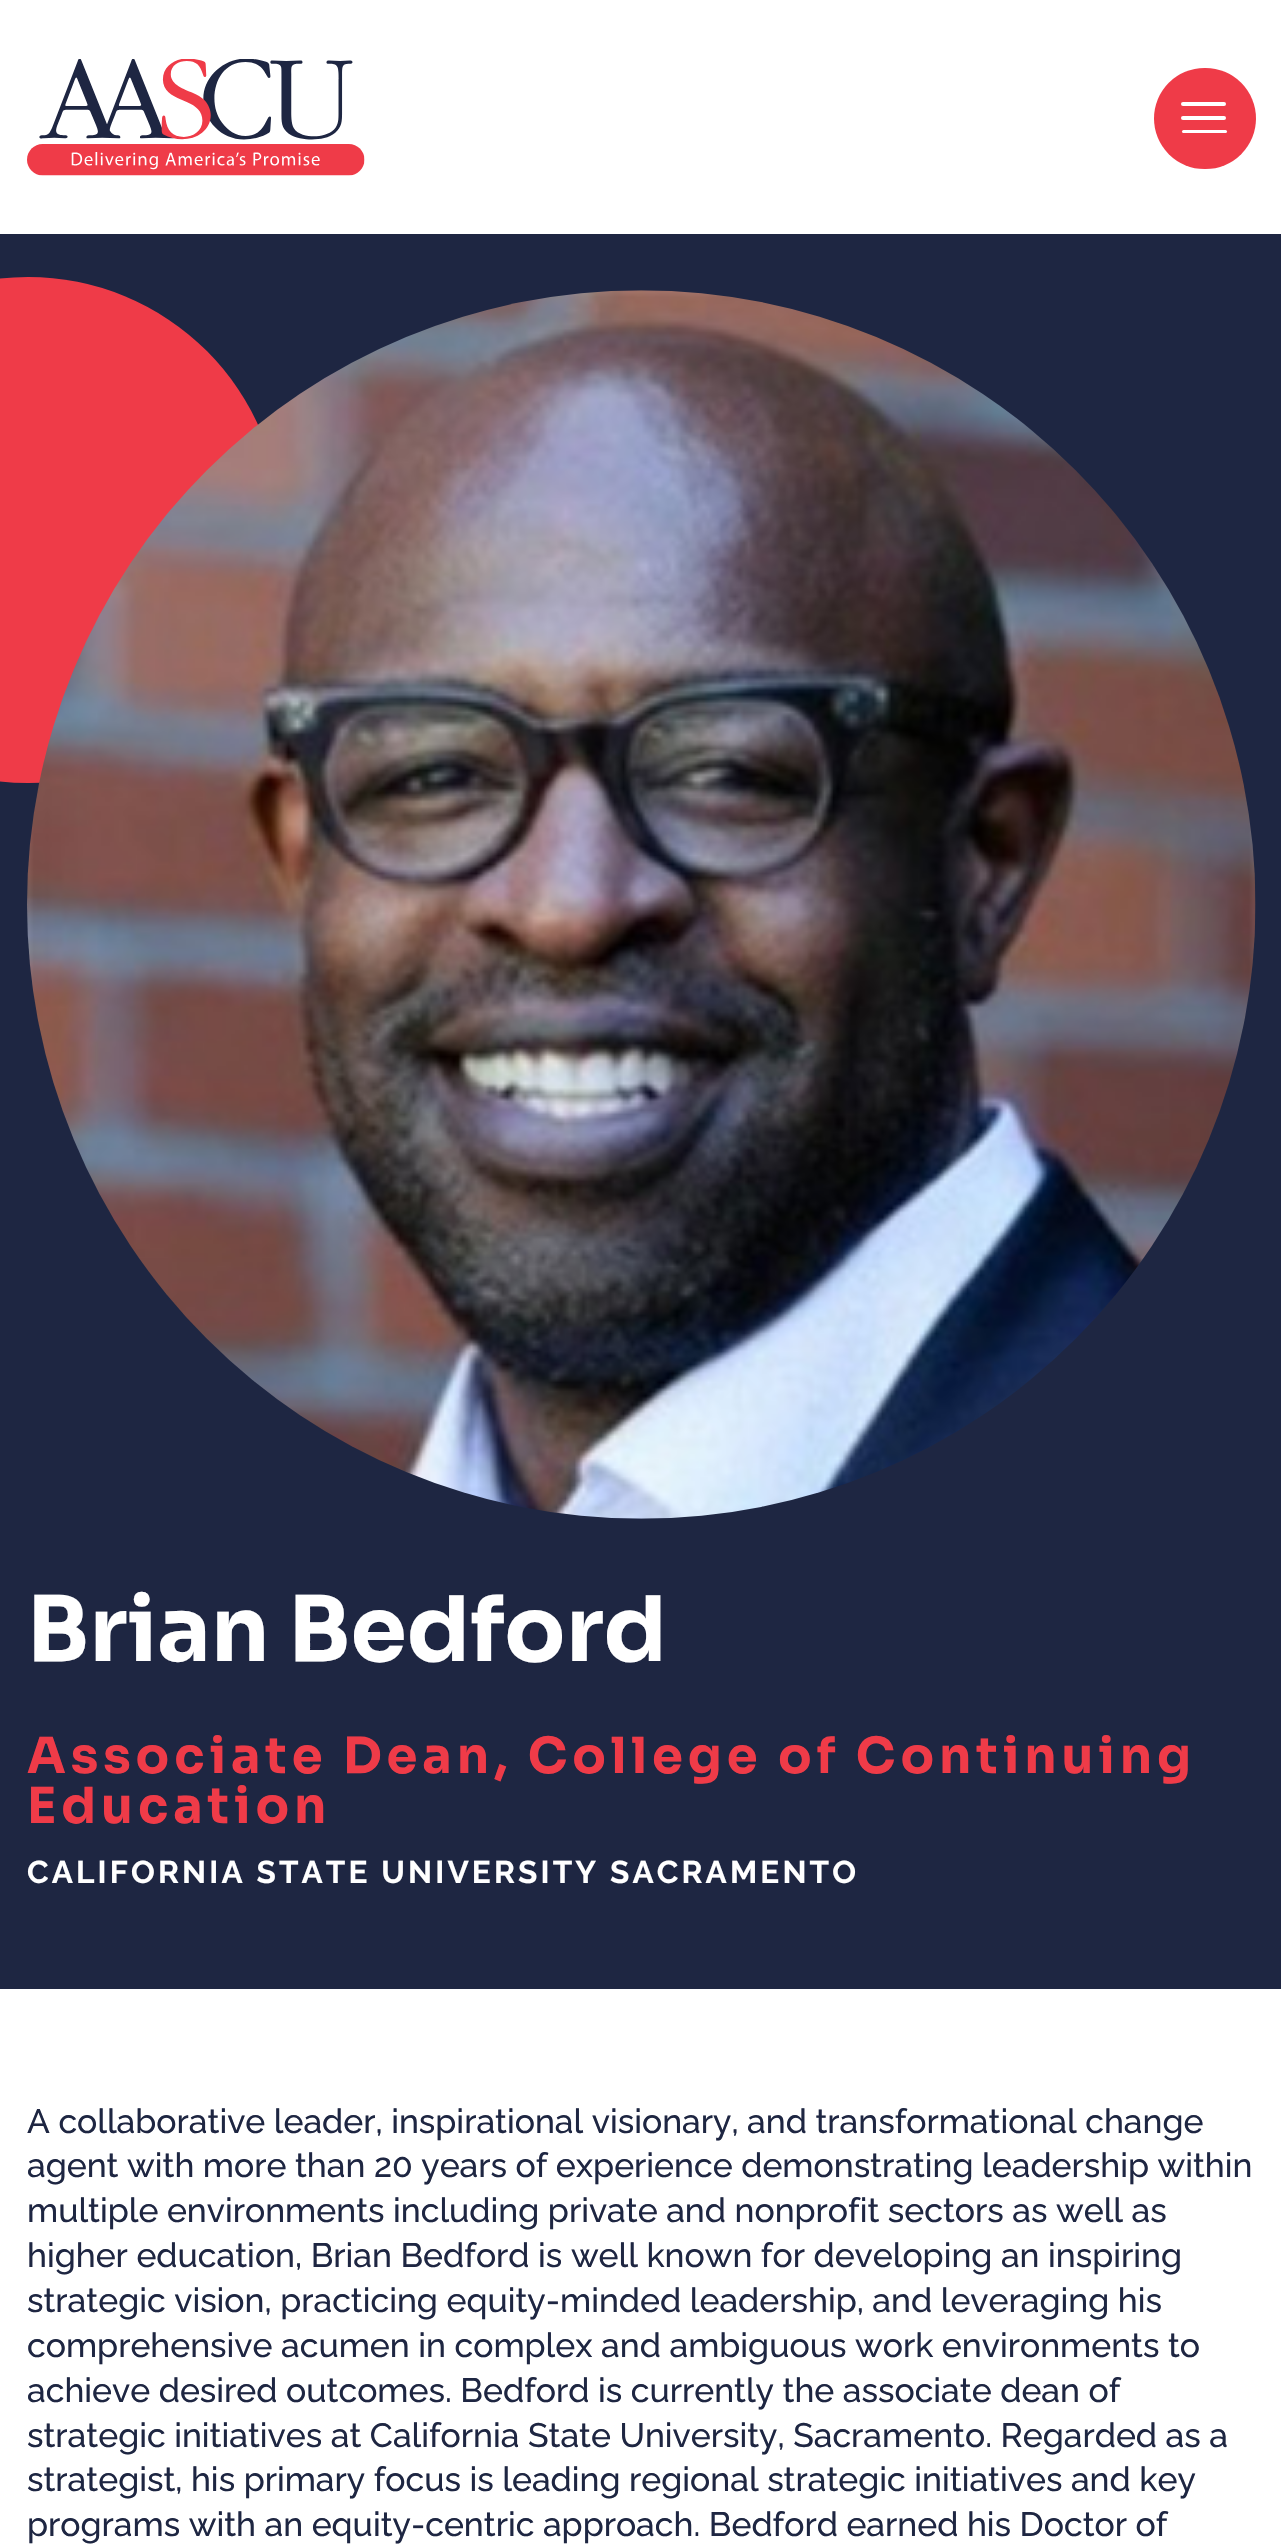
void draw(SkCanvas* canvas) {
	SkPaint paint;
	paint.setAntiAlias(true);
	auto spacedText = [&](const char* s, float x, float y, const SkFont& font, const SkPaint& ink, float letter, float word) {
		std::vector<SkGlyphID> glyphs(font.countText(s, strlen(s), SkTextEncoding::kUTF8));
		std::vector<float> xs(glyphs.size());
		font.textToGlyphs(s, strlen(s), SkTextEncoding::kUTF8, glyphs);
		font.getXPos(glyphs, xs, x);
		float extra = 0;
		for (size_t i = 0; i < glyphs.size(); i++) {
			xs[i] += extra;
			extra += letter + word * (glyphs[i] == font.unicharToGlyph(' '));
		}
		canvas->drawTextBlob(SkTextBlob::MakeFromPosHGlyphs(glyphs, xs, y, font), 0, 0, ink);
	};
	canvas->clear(0xffffffff);
	canvas->drawImageRect(SkImages::DeferredFromEncodedData(SkData::MakeFromFileName("img1.png")), SkRect::MakeXYWH(27, 59, 338, 117), SkSamplingOptions());
	paint.setColor(0xffef3b48);
	canvas->drawRoundRect(SkRect::MakeXYWH(1154, 68, 102, 101), 50.5, 50.5, paint);
	paint.setColor(0xffffffff);
	canvas->drawRoundRect(SkRect::MakeXYWH(1181, 102, 45, 4), 2, 2, paint);
	canvas->drawRoundRect(SkRect::MakeXYWH(1181, 116, 45, 4), 2, 2, paint);
	canvas->drawRoundRect(SkRect::MakeXYWH(1182, 130, 45, 3), 1.5, 1.5, paint);
	paint.setColor(0xff1e2642);
	canvas->drawRect(SkRect::MakeXYWH(0, 234, 1281, 1755), paint);
	paint.setColor(0xffef3b48);
	canvas->drawCircle(28, 530, 253, paint);
	canvas->drawImageRect(SkImages::DeferredFromEncodedData(SkData::MakeFromFileName("img2.png")), SkRect::MakeXYWH(27, 290, 1229, 1229), SkSamplingOptions());
	SkFont f1(fontMgr->matchFamilyStyle("Sora", SkFontStyle::Bold()), 90);
	f1.setSubpixel(true);
	paint.setColor(0xffffffff);
	canvas->drawString("Brian Bedford", 27, 1661, f1, paint);
	SkFont f2(fontMgr->matchFamilyStyle("Sora", SkFontStyle::Bold()), 49.5);
	f2.setSubpixel(true);
	paint.setColor(0xffef3b48);
	spacedText("Associate Dean, College of Continuing", 27, 1773, f2, paint, 4.95, 0);
	spacedText("Education", 27, 1823, f2, paint, 4.95, 0);
	SkFont f3(fontMgr->matchFamilyStyle("Raleway", SkFontStyle::Bold()), 31.5);
	f3.setSubpixel(true);
	paint.setColor(0xffffffff);
	spacedText("CALIFORNIA STATE UNIVERSITY SACRAMENTO", 27, 1883, f3, paint, 3.15, 0);
	SkFont f4(fontMgr->matchFamilyStyle("Raleway", SkFontStyle(500, SkFontStyle::kNormal_Width, SkFontStyle::kUpright_Slant)), 33.75);
	f4.setSubpixel(true);
	paint.setColor(0xff1e2642);
	canvas->drawString("A collaborative leader, inspirational visionary, and transformational change", 27, 2133, f4, paint);
	canvas->drawString("agent with more than 20 years of experience demonstrating leadership within", 27, 2177, f4, paint);
	canvas->drawString("multiple environments including private and nonprofit sectors as well as", 27, 2222, f4, paint);
	canvas->drawString("higher education, Brian Bedford is well known for developing an inspiring", 27, 2267, f4, paint);
	canvas->drawString("strategic vision, practicing equity-minded leadership, and leveraging his", 27, 2312, f4, paint);
	canvas->drawString("comprehensive acumen in complex and ambiguous work environments to", 27, 2357, f4, paint);
	canvas->drawString("achieve desired outcomes. Bedford is currently the associate dean of", 27, 2402, f4, paint);
	canvas->drawString("strategic initiatives at California State University, Sacramento. Regarded as a", 27, 2447, f4, paint);
	canvas->drawString("strategist, his primary focus is leading regional strategic initiatives and key", 27, 2491, f4, paint);
	canvas->drawString("programs with an equity-centric approach. Bedford earned his Doctor of", 27, 2536, f4, paint);
}
